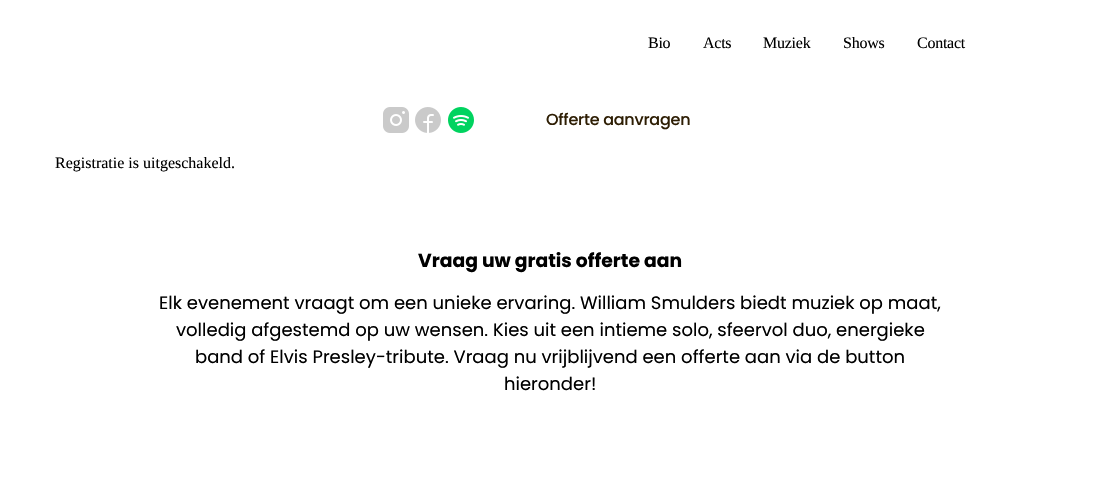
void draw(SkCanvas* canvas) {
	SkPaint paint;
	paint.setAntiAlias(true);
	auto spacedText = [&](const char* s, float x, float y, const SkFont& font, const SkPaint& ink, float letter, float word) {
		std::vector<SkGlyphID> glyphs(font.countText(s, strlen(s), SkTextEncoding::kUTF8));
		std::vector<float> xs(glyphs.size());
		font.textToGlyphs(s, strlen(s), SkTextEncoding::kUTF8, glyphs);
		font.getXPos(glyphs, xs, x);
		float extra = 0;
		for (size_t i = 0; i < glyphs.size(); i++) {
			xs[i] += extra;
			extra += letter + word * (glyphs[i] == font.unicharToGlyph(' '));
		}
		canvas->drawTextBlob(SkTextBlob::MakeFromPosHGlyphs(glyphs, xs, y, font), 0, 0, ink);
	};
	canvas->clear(0xffffffff);
	SkFont f1(fontMgr->matchFamilyStyle("Liberation Serif", SkFontStyle::Normal()), 16);
	f1.setSubpixel(true);
	paint.setColor(0xff000000);
	spacedText("Bio", 648, 48, f1, paint, -0.25, 0);
	spacedText("Acts", 703, 48, f1, paint, -0.25, 0);
	spacedText("Muziek", 763, 48, f1, paint, -0.25, 0);
	spacedText("Shows", 843, 48, f1, paint, -0.25, 0);
	spacedText("Contact", 917, 48, f1, paint, -0.25, 0);
	canvas->drawImageRect(SkImages::DeferredFromEncodedData(SkData::MakeFromFileName("img1.png")), SkRect::MakeXYWH(383, 107, 26, 26), SkSamplingOptions());
	canvas->drawImageRect(SkImages::DeferredFromEncodedData(SkData::MakeFromFileName("img2.png")), SkRect::MakeXYWH(415, 107, 26, 26), SkSamplingOptions());
	canvas->drawImageRect(SkImages::DeferredFromEncodedData(SkData::MakeFromFileName("img3.png")), SkRect::MakeXYWH(448, 107, 26, 26), SkSamplingOptions());
	SkFont f2(fontMgr->matchFamilyStyle("Poppins", SkFontStyle(500, SkFontStyle::kNormal_Width, SkFontStyle::kUpright_Slant)), 16);
	f2.setSubpixel(true);
	paint.setColor(0xff2e1e04);
	spacedText("Offerte aanvragen", 546, 125, f2, paint, -0.25, 0);
	paint.setColor(0xff000000);
	canvas->drawString("Registratie is uitgeschakeld.", 55, 168, f1, paint);
	SkFont f3(fontMgr->matchFamilyStyle("Poppins", SkFontStyle::Bold()), 18.75);
	f3.setSubpixel(true);
	canvas->drawString("Vraag uw gratis offerte aan", 418, 267, f3, paint);
	SkFont f4(fontMgr->matchFamilyStyle("Poppins", SkFontStyle::Normal()), 18);
	f4.setSubpixel(true);
	canvas->drawString("Elk evenement vraagt om een unieke ervaring. William Smulders biedt muziek op maat,", 159, 309, f4, paint);
	canvas->drawString("volledig afgestemd op uw wensen. Kies uit een intieme solo, sfeervol duo, energieke", 176, 336, f4, paint);
	canvas->drawString("band of Elvis Presley-tribute. Vraag nu vrijblijvend een offerte aan via de button", 195, 363, f4, paint);
	canvas->drawString("hieronder!", 504, 390, f4, paint);
}
